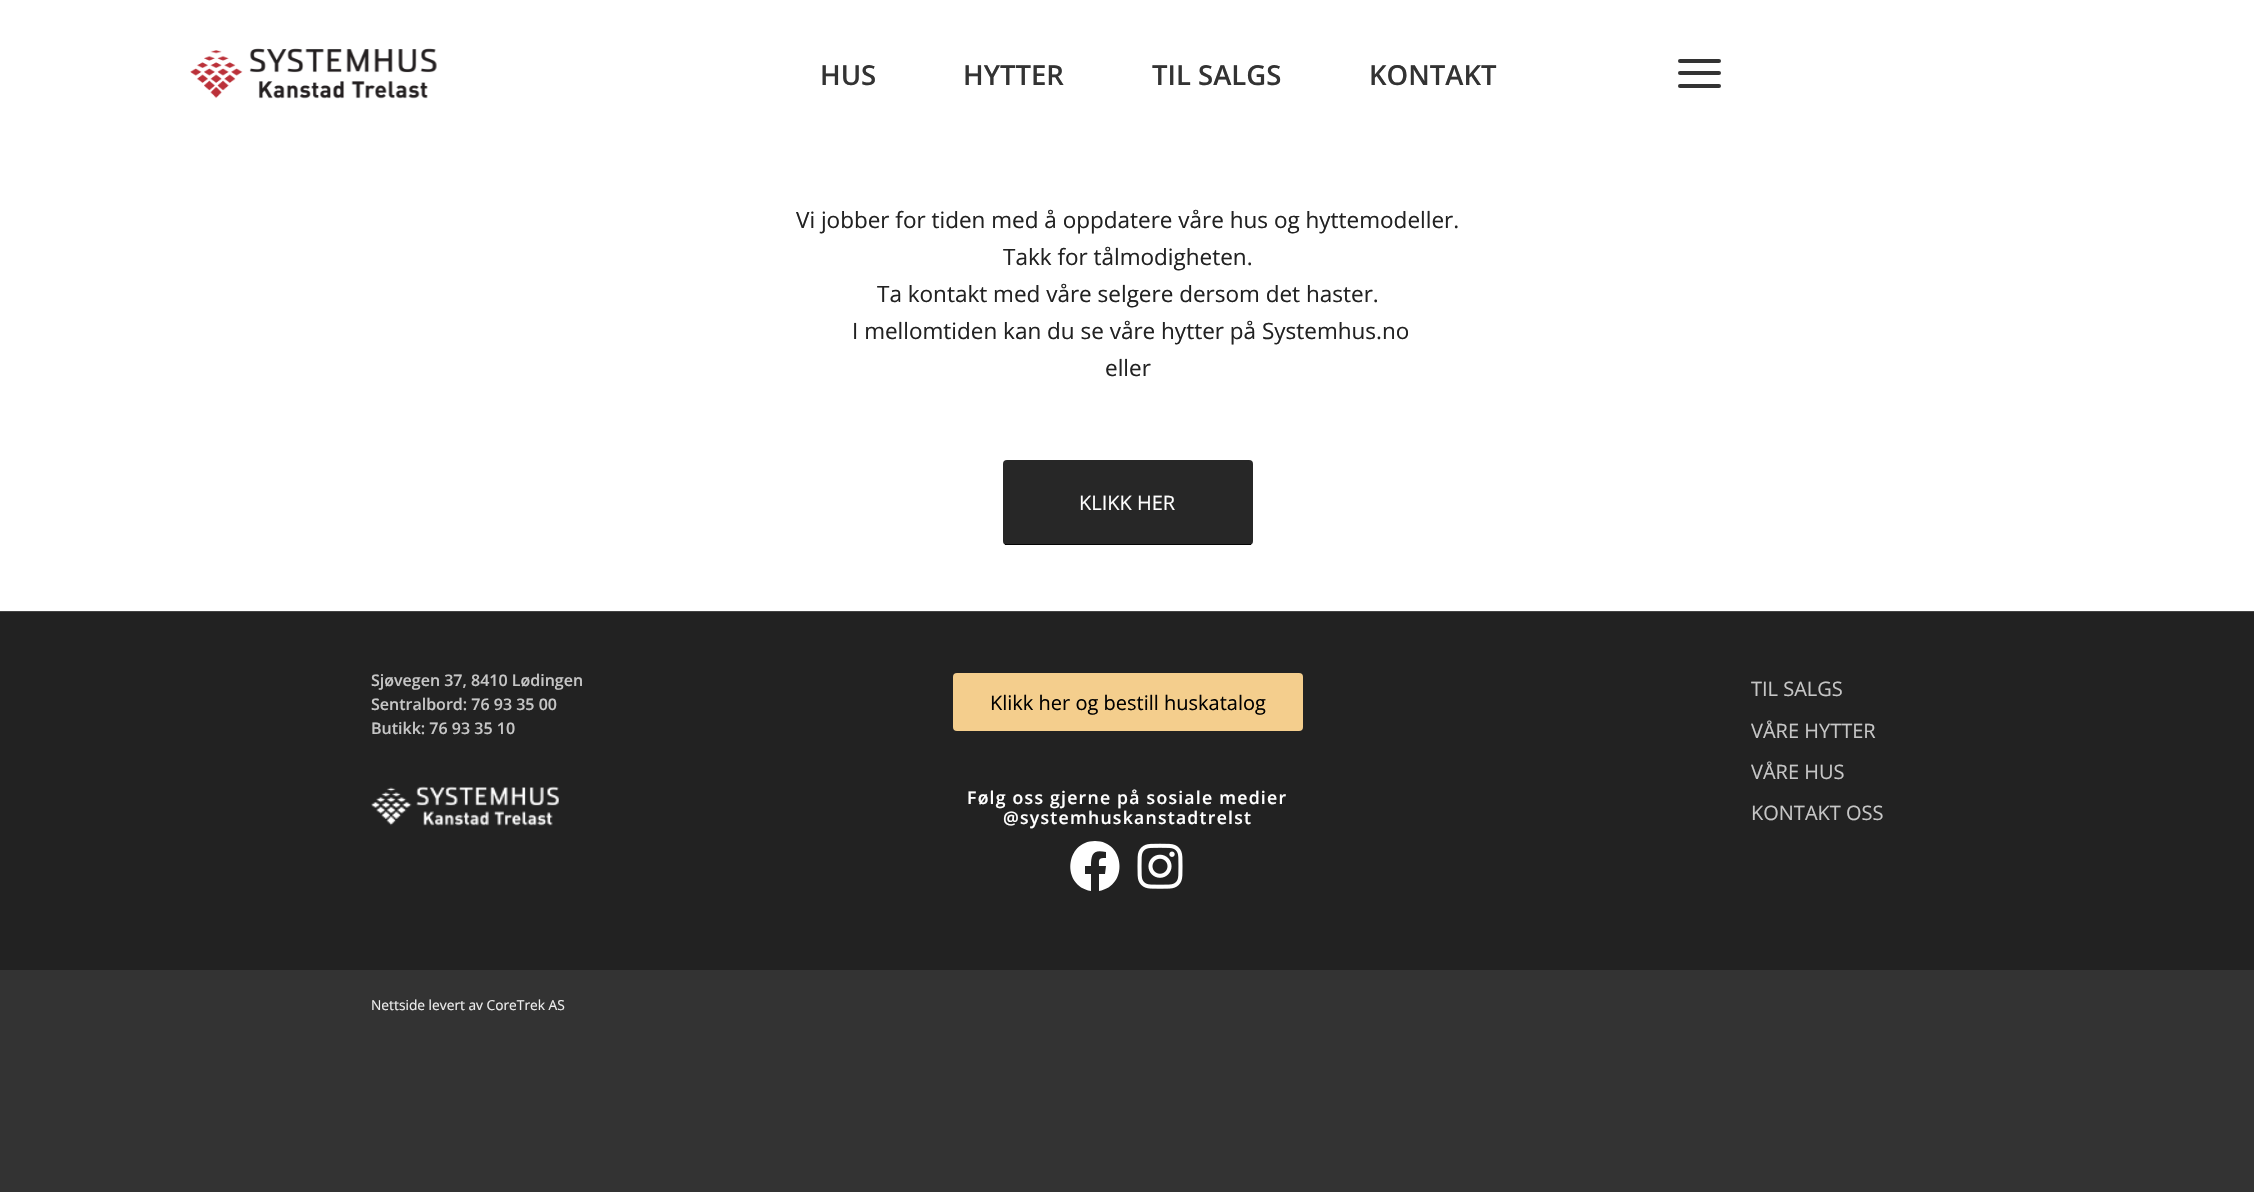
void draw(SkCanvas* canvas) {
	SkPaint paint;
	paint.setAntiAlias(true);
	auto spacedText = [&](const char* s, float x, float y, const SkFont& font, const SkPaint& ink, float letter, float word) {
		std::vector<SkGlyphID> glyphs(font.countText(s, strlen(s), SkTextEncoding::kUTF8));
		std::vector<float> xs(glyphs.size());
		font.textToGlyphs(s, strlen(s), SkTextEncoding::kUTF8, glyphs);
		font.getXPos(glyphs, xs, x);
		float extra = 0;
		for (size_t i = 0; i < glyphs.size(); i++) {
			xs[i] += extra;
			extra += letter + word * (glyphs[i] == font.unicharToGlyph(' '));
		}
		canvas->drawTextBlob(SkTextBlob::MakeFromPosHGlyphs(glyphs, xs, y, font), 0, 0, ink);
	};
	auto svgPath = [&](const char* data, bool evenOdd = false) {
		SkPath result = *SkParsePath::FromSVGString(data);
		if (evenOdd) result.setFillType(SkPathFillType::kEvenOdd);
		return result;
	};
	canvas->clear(0xff333333);
	paint.setColor(0xffffffff);
	canvas->drawRect(SkRect::MakeXYWH(0, 0, 2254, 611), paint);
	canvas->drawImageRect(SkImages::DeferredFromEncodedData(SkData::MakeFromFileName("img1.png")), SkRect::MakeXYWH(190, 48, 247, 51), SkSamplingOptions());
	SkFont f1(fontMgr->matchFamilyStyle("Open Sans", SkFontStyle(600, SkFontStyle::kNormal_Width, SkFontStyle::kUpright_Slant)), 27.5);
	f1.setSubpixel(true);
	paint.setColor(0xff333333);
	canvas->drawString("HUS", 820, 85, f1, paint);
	canvas->drawString("HYTTER", 963, 85, f1, paint);
	canvas->drawString("TIL SALGS", 1152, 85, f1, paint);
	canvas->drawString("KONTAKT", 1369, 85, f1, paint);
	canvas->drawRoundRect(SkRect::MakeXYWH(1678, 71, 43, 4), 2, 2, paint);
	canvas->drawRoundRect(SkRect::MakeXYWH(1678, 59, 43, 4), 2, 2, paint);
	canvas->drawRoundRect(SkRect::MakeXYWH(1678, 84, 43, 4), 2, 2, paint);
	SkFont f2(fontMgr->matchFamilyStyle("Open Sans", SkFontStyle::Normal()), 22.5);
	f2.setSubpixel(true);
	paint.setColor(0xff222222);
	canvas->drawString("Vi jobber for tiden med å oppdatere våre hus og hyttemodeller.", 796, 228, f2, paint);
	canvas->drawString("Takk for tålmodigheten.", 1003, 265, f2, paint);
	canvas->drawString("Ta kontakt med våre selgere dersom det haster.", 877, 302, f2, paint);
	canvas->drawString("I mellomtiden kan du se våre hytter på Systemhus.no", 852, 339, f2, paint);
	canvas->drawString("eller", 1105, 376, f2, paint);
	paint.setColor(0xff272727);
	canvas->drawRoundRect(SkRect::MakeXYWH(1003, 460, 250, 85), 4, 4, paint);
	paint.setColor(0xff050505);
	canvas->drawRect(SkRect::MakeXYWH(1005, 544, 246, 1), paint);
	SkFont f3(fontMgr->matchFamilyStyle("Open Sans", SkFontStyle::Normal()), 20);
	f3.setSubpixel(true);
	paint.setColor(0xffffffff);
	canvas->drawString("KLIKK HER", 1079, 510, f3, paint);
	paint.setColor(0xff222222);
	canvas->drawRect(SkRect::MakeXYWH(0, 612, 2254, 358), paint);
	paint.setColor(0xff444444);
	canvas->drawRect(SkRect::MakeXYWH(0, 611, 2254, 1), paint);
	SkFont f4(fontMgr->matchFamilyStyle("Open Sans", SkFontStyle(600, SkFontStyle::kNormal_Width, SkFontStyle::kUpright_Slant)), 16);
	f4.setSubpixel(true);
	paint.setColor(0xffc6c6c6);
	canvas->drawString("Sjøvegen 37, 8410 Lødingen", 371, 686, f4, paint);
	canvas->drawString("Sentralbord: 76 93 35 00", 371, 710, f4, paint);
	canvas->drawString("Butikk: 76 93 35 10", 371, 734, f4, paint);
	canvas->drawImageRect(SkImages::DeferredFromEncodedData(SkData::MakeFromFileName("img2.png")), SkRect::MakeXYWH(371, 786, 188, 40), SkSamplingOptions());
	paint.setColor(0xfff4ce8d);
	canvas->drawRoundRect(SkRect::MakeXYWH(953, 673, 350, 58), 4, 4, paint);
	paint.setColor(0xff000000);
	canvas->drawString("Klikk her og bestill huskatalog", 990, 710, f3, paint);
	SkFont f5(fontMgr->matchFamilyStyle("Open Sans", SkFontStyle(600, SkFontStyle::kNormal_Width, SkFontStyle::kUpright_Slant)), 17.6);
	f5.setSubpixel(true);
	paint.setColor(0xffffffff);
	spacedText("Følg oss gjerne på sosiale medier", 967, 804, f5, paint, 1.25, 0);
	spacedText("@systemhuskanstadtrelst", 1003, 824, f5, paint, 1.25, 0);
	canvas->drawPath(svgPath("M1095 841C1065 841 1061 886 1091 891V874H1085V866H1091C1091 854 1093 849 1106 852V858C1098 858 1099 859 1099 866H1106L1105 874H1099V891C1129 886 1125 841 1095 841Z"), paint);
	canvas->drawImageRect(SkImages::DeferredFromEncodedData(SkData::MakeFromFileName("img3.png")), SkRect::MakeXYWH(1137, 843, 46, 46), SkSamplingOptions());
	paint.setColor(0xffc6c6c6);
	canvas->drawString("TIL SALGS", 1751, 696, f3, paint);
	canvas->drawString("VÅRE HYTTER", 1751, 738, f3, paint);
	canvas->drawString("VÅRE HUS", 1751, 779, f3, paint);
	canvas->drawString("KONTAKT OSS", 1751, 820, f3, paint);
	SkFont f6(fontMgr->matchFamilyStyle("Open Sans", SkFontStyle::Normal()), 13.75);
	f6.setSubpixel(true);
	paint.setColor(0xffeeeeee);
	canvas->drawString("Nettside levert av CoreTrek AS", 371, 1010, f6, paint);
}
